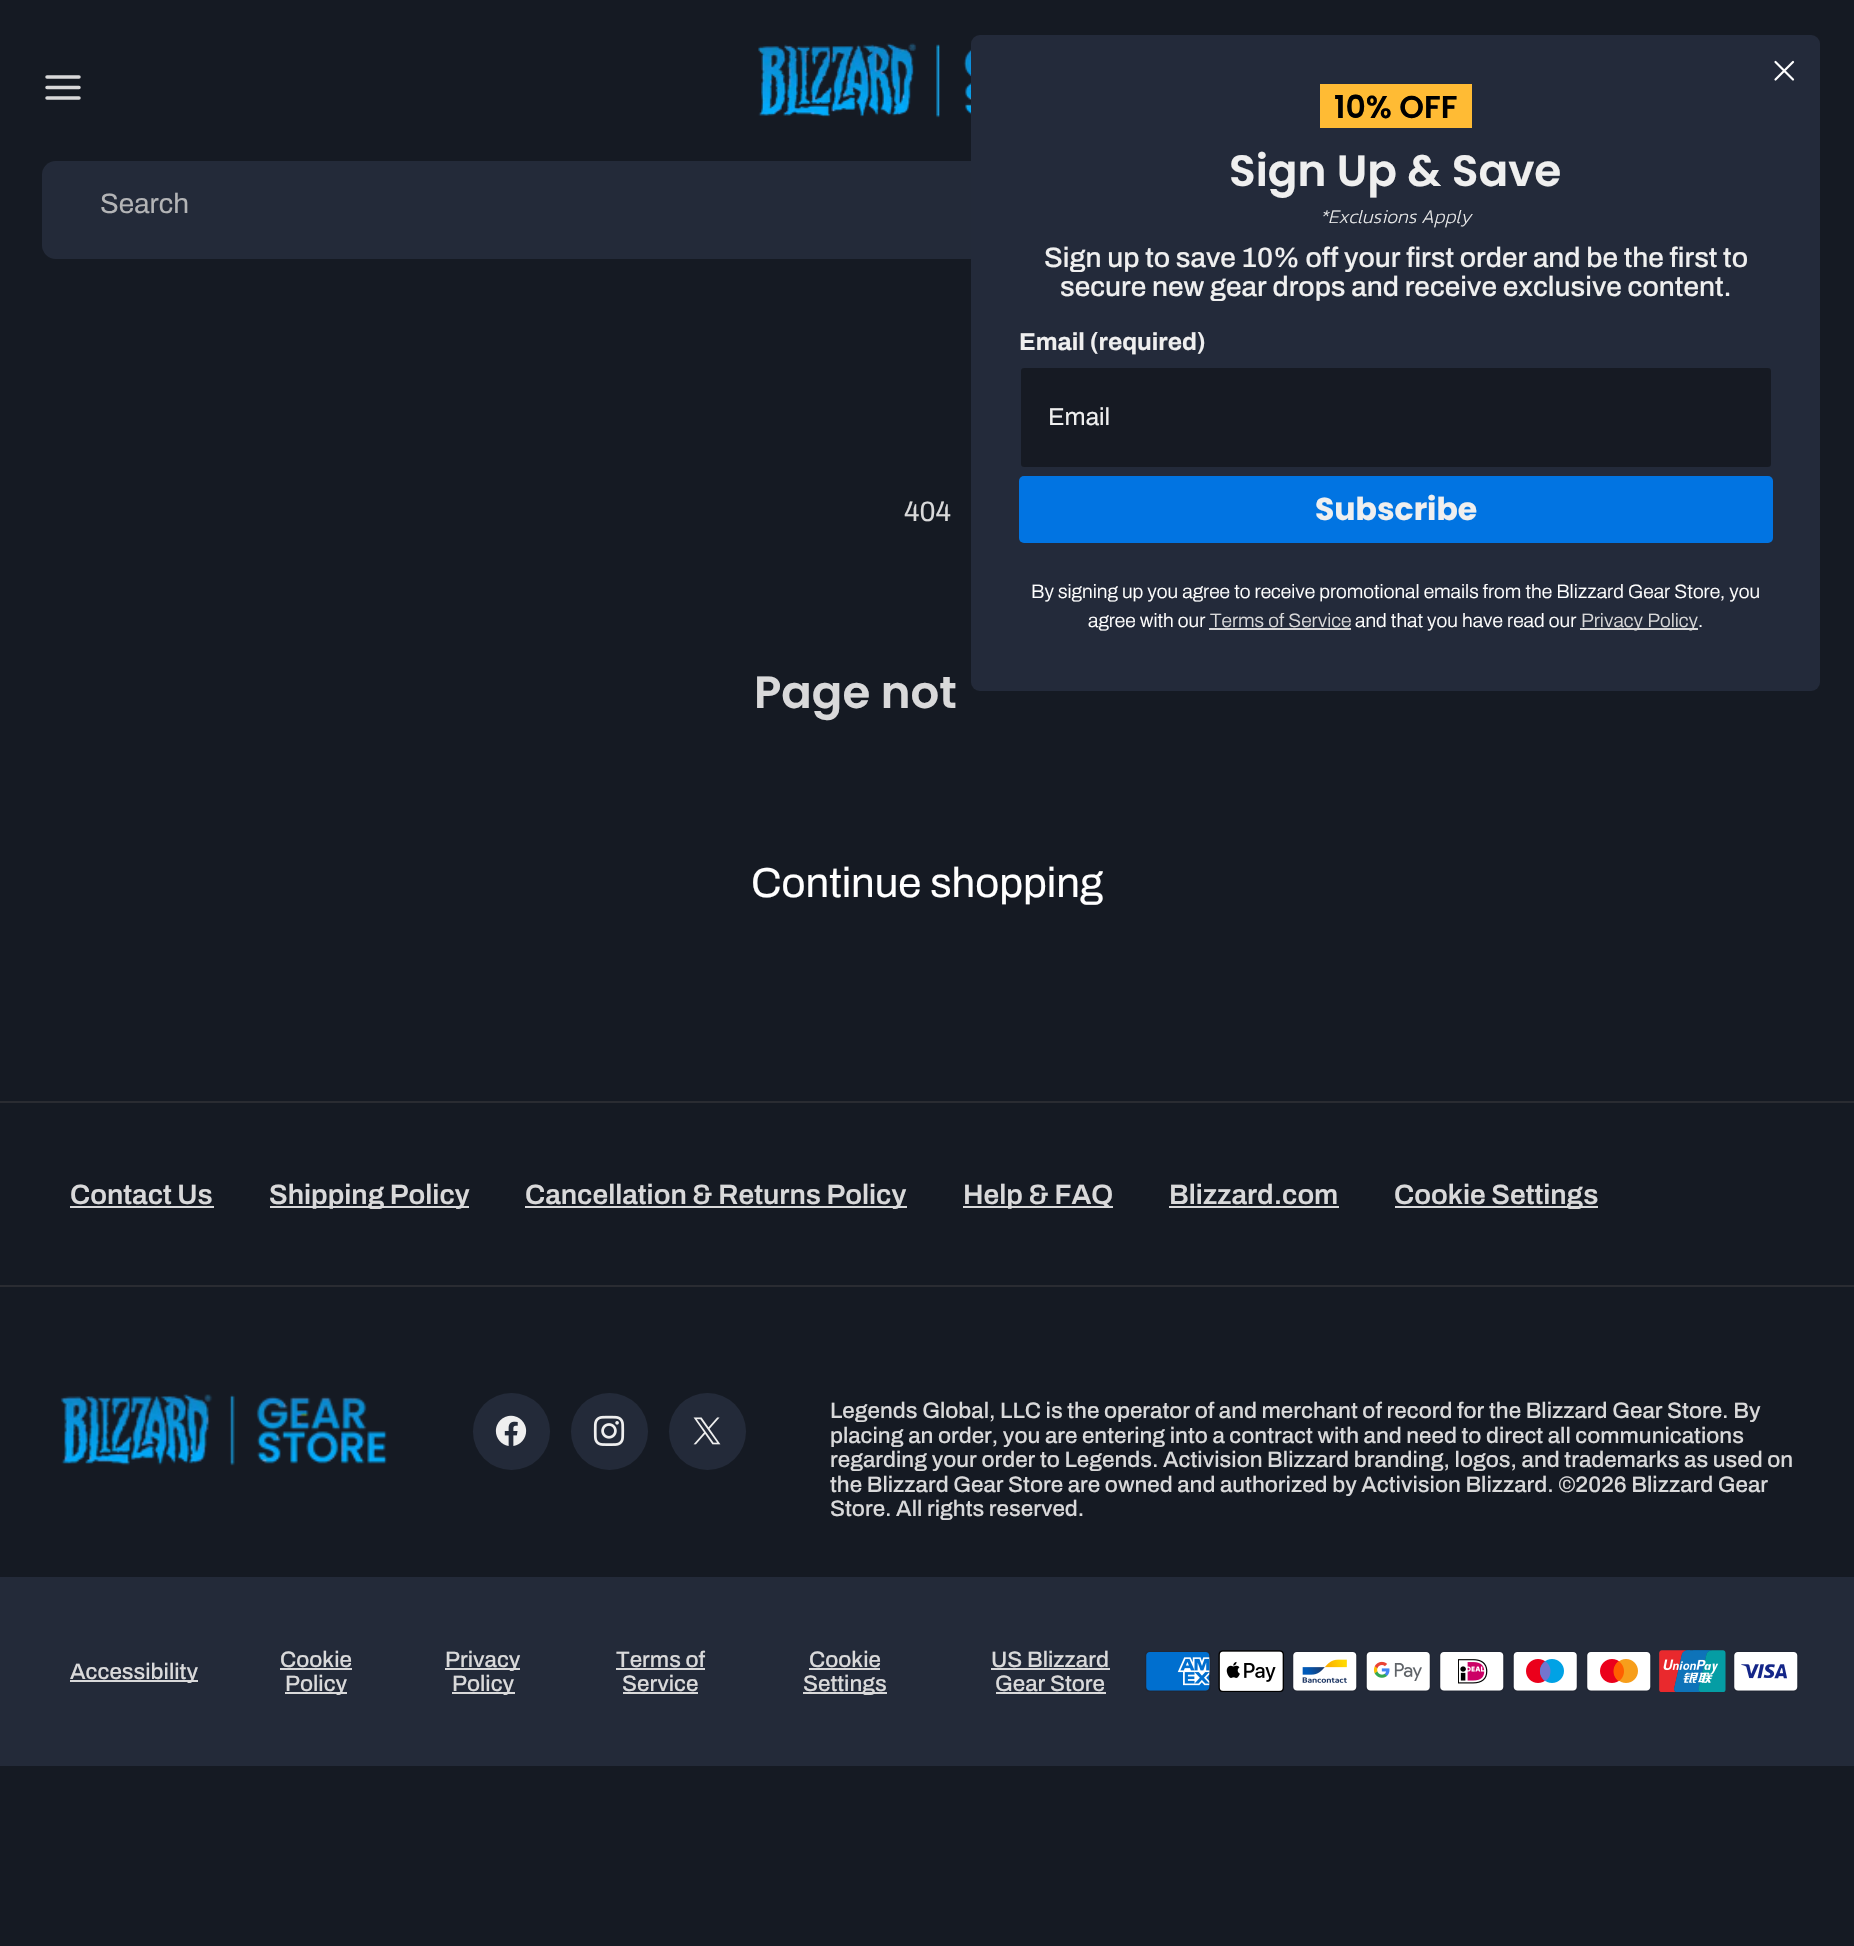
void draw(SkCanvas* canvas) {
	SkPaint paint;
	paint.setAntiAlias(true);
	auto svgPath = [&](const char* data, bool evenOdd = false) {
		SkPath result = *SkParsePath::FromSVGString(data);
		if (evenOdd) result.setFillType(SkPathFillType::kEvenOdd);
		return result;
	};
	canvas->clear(0xff151a23);
	paint.setStroke(true);
	paint.setStrokeWidth(3.5);
	paint.setStrokeCap(SkPaint::kRound_Cap);
	paint.setStrokeJoin(SkPaint::kRound_Join);
	paint.setColor(0xffd9d9da);
	canvas->drawPath(svgPath("M47 87.5H79M47 77H79M47 98H79"), paint);
	canvas->drawImageRect(SkImages::DeferredFromEncodedData(SkData::MakeFromFileName("img1.png")), SkRect::MakeXYWH(758, 43, 213, 75), SkSamplingOptions());
	paint.setStroke(false);
	paint.setColor(0xff232a39);
	canvas->drawRoundRect(SkRect::MakeXYWH(42, 161, 1771, 98), 14, 14, paint);
	SkFont f1(fontMgr->matchFamilyStyle("Archivo", SkFontStyle::Normal()), 28);
	f1.setSubpixel(true);
	paint.setColor(0xffb3b4b6);
	canvas->drawString("Search", 100, 213, f1, paint);
	paint.setColor(0xff232a3a);
	canvas->drawRoundRect(SkRect::MakeXYWH(971, 35, 849, 656), 9, 9, paint);
	paint.setStroke(true);
	paint.setStrokeWidth(2.2);
	paint.setColor(0xffffffff);
	canvas->drawPath(svgPath("M1775.5 62L1793 79.5M1775.5 79.5L1793 62Z"), paint);
	paint.setStroke(false);
	paint.setColor(0xffffbb34);
	canvas->drawRect(SkRect::MakeXYWH(1320, 84, 152, 44), paint);
	SkFont f2(fontMgr->matchFamilyStyle("Poppins", SkFontStyle(600, SkFontStyle::kNormal_Width, SkFontStyle::kUpright_Slant)), 31.5);
	f2.setSubpixel(true);
	paint.setColor(0xff000000);
	canvas->drawString("10% OFF", 1334, 118, f2, paint);
	SkFont f3(fontMgr->matchFamilyStyle("Poppins", SkFontStyle(600, SkFontStyle::kNormal_Width, SkFontStyle::kUpright_Slant)), 43.75);
	f3.setSubpixel(true);
	paint.setColor(0xffefefef);
	canvas->drawString("Sign Up & Save", 1229, 186, f3, paint);
	SkFont f4(fontMgr->matchFamilyStyle("Kanit", SkFontStyle(200, SkFontStyle::kNormal_Width, SkFontStyle::kItalic_Slant)), 19.25);
	f4.setSubpixel(true);
	canvas->drawString("*Exclusions Apply", 1320, 223, f4, paint);
	SkFont f5(fontMgr->matchFamilyStyle("Archivo", SkFontStyle(500, SkFontStyle::kNormal_Width, SkFontStyle::kUpright_Slant)), 28);
	f5.setSubpixel(true);
	canvas->drawString("Sign up to save 10% off your first order and be the first to", 1044, 267, f5, paint);
	canvas->drawString("secure new gear drops and receive exclusive content.", 1060, 296, f5, paint);
	SkFont f6(fontMgr->matchFamilyStyle("Archivo", SkFontStyle::Bold()), 24.5);
	f6.setSubpixel(true);
	canvas->drawString("Email (required)", 1019, 350, f6, paint);
	paint.setColor(0xff161a23);
	canvas->drawRoundRect(SkRect::MakeXYWH(1020, 367, 752, 101), 4, 4, paint);
	paint.setStroke(true);
	paint.setStrokeWidth(2);
	paint.setStrokeCap(SkPaint::kButt_Cap);
	paint.setStrokeJoin(SkPaint::kMiter_Join);
	paint.setColor(0xff232a3a);
	canvas->drawRoundRect(SkRect::MakeXYWH(1020, 367, 752, 101), 4, 4, paint);
	SkFont f7(fontMgr->matchFamilyStyle("Archivo", SkFontStyle::Normal()), 24.5);
	f7.setSubpixel(true);
	paint.setStroke(false);
	paint.setColor(0xffefefef);
	canvas->drawString("Email", 1048, 425, f7, paint);
	paint.setColor(0xff0174e2);
	canvas->drawRoundRect(SkRect::MakeXYWH(1019, 476, 754, 67), 5, 5, paint);
	SkFont f8(fontMgr->matchFamilyStyle("Poppins", SkFontStyle::Bold()), 31.5);
	f8.setSubpixel(true);
	paint.setColor(0xffefefef);
	canvas->drawString("Subscribe", 1315, 520, f8, paint);
	SkFont f9(fontMgr->matchFamilyStyle("Archivo", SkFontStyle(300, SkFontStyle::kNormal_Width, SkFontStyle::kUpright_Slant)), 19.25);
	f9.setSubpixel(true);
	paint.setColor(0xffffffff);
	canvas->drawString("By signing up you agree to receive promotional emails from the Blizzard Gear Store, you", 1031, 598, f9, paint);
	canvas->drawString("agree with our", 1088, 627, f9, paint);
	paint.setColor(0xffd9d9da);
	canvas->drawRect(SkRect::MakeXYWH(1209, 628, 142, 2), paint);
	canvas->drawString("Terms of Service", 1210, 627, f9, paint);
	paint.setColor(0xffffffff);
	canvas->drawString("and that you have read our", 1355, 627, f9, paint);
	paint.setColor(0xffd9d9da);
	canvas->drawRect(SkRect::MakeXYWH(1580, 628, 118, 2), paint);
	canvas->drawString("Privacy Policy", 1581, 627, f9, paint);
	paint.setColor(0xffffffff);
	canvas->drawString(".", 1698, 627, f9, paint);
	paint.setColor(0xffd9d9da);
	canvas->drawString("404", 904, 521, f1, paint);
	SkFont f10(fontMgr->matchFamilyStyle("Poppins", SkFontStyle(600, SkFontStyle::kNormal_Width, SkFontStyle::kUpright_Slant)), 45);
	f10.setSubpixel(true);
	canvas->drawString("Page not", 754, 708, f10, paint);
	SkFont f11(fontMgr->matchFamilyStyle("Archivo", SkFontStyle::Normal()), 42);
	f11.setSubpixel(true);
	paint.setColor(0xffffffff);
	canvas->drawString("Continue shopping", 751, 897, f11, paint);
	paint.setColor(0xff2a2c32);
	canvas->drawRect(SkRect::MakeXYWH(0, 1101, 1854, 2), paint);
	SkFont f12(fontMgr->matchFamilyStyle("Archivo", SkFontStyle(600, SkFontStyle::kNormal_Width, SkFontStyle::kUpright_Slant)), 28);
	f12.setSubpixel(true);
	paint.setColor(0xffd9d9da);
	canvas->drawString("Contact Us", 70, 1204, f12, paint);
	canvas->drawRect(SkRect::MakeXYWH(70, 1206, 144, 2), paint);
	canvas->drawRect(SkRect::MakeXYWH(270, 1206, 199, 2), paint);
	canvas->drawString("Shipping Policy", 269, 1204, f12, paint);
	canvas->drawRect(SkRect::MakeXYWH(525, 1206, 382, 2), paint);
	canvas->drawString("Cancellation & Returns Policy", 525, 1204, f12, paint);
	canvas->drawRect(SkRect::MakeXYWH(963, 1206, 150, 2), paint);
	canvas->drawString("Help & FAQ", 963, 1204, f12, paint);
	canvas->drawString("Blizzard.com", 1169, 1204, f12, paint);
	canvas->drawRect(SkRect::MakeXYWH(1169, 1206, 170, 2), paint);
	canvas->drawRect(SkRect::MakeXYWH(1395, 1206, 203, 2), paint);
	canvas->drawString("Cookie Settings", 1394, 1204, f12, paint);
	paint.setColor(0xff2a2c32);
	canvas->drawRect(SkRect::MakeXYWH(0, 1285, 1854, 2), paint);
	canvas->drawImageRect(SkImages::DeferredFromEncodedData(SkData::MakeFromFileName("img2.png")), SkRect::MakeXYWH(60, 1394, 327, 72), SkSamplingOptions());
	paint.setColor(0xff232a39);
	canvas->drawCircle(511.5, 1431.5, 38.5, paint);
	canvas->drawImageRect(SkImages::DeferredFromEncodedData(SkData::MakeFromFileName("img3.png")), SkRect::MakeXYWH(495, 1415, 32, 31), SkSamplingOptions());
	canvas->drawCircle(609.5, 1431.5, 38.5, paint);
	canvas->drawImageRect(SkImages::DeferredFromEncodedData(SkData::MakeFromFileName("img4.png")), SkRect::MakeXYWH(593, 1415, 32, 31), SkSamplingOptions());
	canvas->drawCircle(707.5, 1431.5, 38.5, paint);
	canvas->drawImageRect(SkImages::DeferredFromEncodedData(SkData::MakeFromFileName("img5.png")), SkRect::MakeXYWH(693, 1417, 28, 28), SkSamplingOptions());
	SkFont f13(fontMgr->matchFamilyStyle("Archivo", SkFontStyle(500, SkFontStyle::kNormal_Width, SkFontStyle::kUpright_Slant)), 22.4);
	f13.setSubpixel(true);
	paint.setColor(0xffd9d9da);
	canvas->drawString("Legends Global, LLC is the operator of and merchant of record for the Blizzard Gear Store. By", 830, 1418, f13, paint);
	canvas->drawString("placing an order, you are entering into a contract with and need to direct all communications", 830, 1443, f13, paint);
	canvas->drawString("regarding your order to Legends. Activision Blizzard branding, logos, and trademarks as used on", 830, 1467, f13, paint);
	canvas->drawString("the Blizzard Gear Store are owned and authorized by Activision Blizzard. ©2026 Blizzard Gear", 830, 1492, f13, paint);
	canvas->drawString("Store. All rights reserved.", 830, 1516, f13, paint);
	paint.setColor(0xff232a39);
	canvas->drawRect(SkRect::MakeXYWH(0, 1577, 1854, 189), paint);
	paint.setColor(0xffd9d9da);
	canvas->drawRect(SkRect::MakeXYWH(70, 1680, 128, 2), paint);
	canvas->drawString("Accessibility", 70, 1679, f13, paint);
	canvas->drawString("Cookie", 280, 1667, f13, paint);
	canvas->drawRect(SkRect::MakeXYWH(280, 1668, 72, 2), paint);
	canvas->drawRect(SkRect::MakeXYWH(285, 1692, 62, 2), paint);
	canvas->drawString("Policy", 285, 1691, f13, paint);
	canvas->drawRect(SkRect::MakeXYWH(445, 1668, 75, 2), paint);
	canvas->drawString("Privacy", 445, 1667, f13, paint);
	canvas->drawRect(SkRect::MakeXYWH(452, 1692, 63, 2), paint);
	canvas->drawString("Policy", 452, 1691, f13, paint);
	canvas->drawString("Terms of", 616, 1667, f13, paint);
	canvas->drawRect(SkRect::MakeXYWH(616, 1668, 89, 2), paint);
	canvas->drawString("Service", 622, 1691, f13, paint);
	canvas->drawRect(SkRect::MakeXYWH(623, 1692, 75, 2), paint);
	canvas->drawString("Cookie", 809, 1667, f13, paint);
	canvas->drawRect(SkRect::MakeXYWH(809, 1668, 71, 2), paint);
	canvas->drawRect(SkRect::MakeXYWH(803, 1692, 84, 2), paint);
	canvas->drawString("Settings", 803, 1691, f13, paint);
	canvas->drawString("US Blizzard", 991, 1667, f13, paint);
	canvas->drawRect(SkRect::MakeXYWH(991, 1668, 119, 2), paint);
	canvas->drawString("Gear Store", 995, 1691, f13, paint);
	canvas->drawRect(SkRect::MakeXYWH(996, 1692, 110, 2), paint);
	canvas->drawImageRect(SkImages::DeferredFromEncodedData(SkData::MakeFromFileName("img6.png")), SkRect::MakeXYWH(1145, 1651, 66, 41), SkSamplingOptions());
	canvas->drawImageRect(SkImages::DeferredFromEncodedData(SkData::MakeFromFileName("img7.png")), SkRect::MakeXYWH(1218, 1650, 66, 42), SkSamplingOptions());
	canvas->drawImageRect(SkImages::DeferredFromEncodedData(SkData::MakeFromFileName("img8.png")), SkRect::MakeXYWH(1292, 1651, 66, 41), SkSamplingOptions());
	canvas->drawImageRect(SkImages::DeferredFromEncodedData(SkData::MakeFromFileName("img9.png")), SkRect::MakeXYWH(1365, 1651, 66, 41), SkSamplingOptions());
	canvas->drawImageRect(SkImages::DeferredFromEncodedData(SkData::MakeFromFileName("img10.png")), SkRect::MakeXYWH(1439, 1651, 66, 41), SkSamplingOptions());
	canvas->drawImageRect(SkImages::DeferredFromEncodedData(SkData::MakeFromFileName("img11.png")), SkRect::MakeXYWH(1512, 1651, 66, 41), SkSamplingOptions());
	canvas->drawImageRect(SkImages::DeferredFromEncodedData(SkData::MakeFromFileName("img12.png")), SkRect::MakeXYWH(1586, 1651, 66, 41), SkSamplingOptions());
	canvas->drawImageRect(SkImages::DeferredFromEncodedData(SkData::MakeFromFileName("img13.png")), SkRect::MakeXYWH(1659, 1650, 67, 42), SkSamplingOptions());
	canvas->drawImageRect(SkImages::DeferredFromEncodedData(SkData::MakeFromFileName("img14.png")), SkRect::MakeXYWH(1733, 1651, 66, 41), SkSamplingOptions());
}
